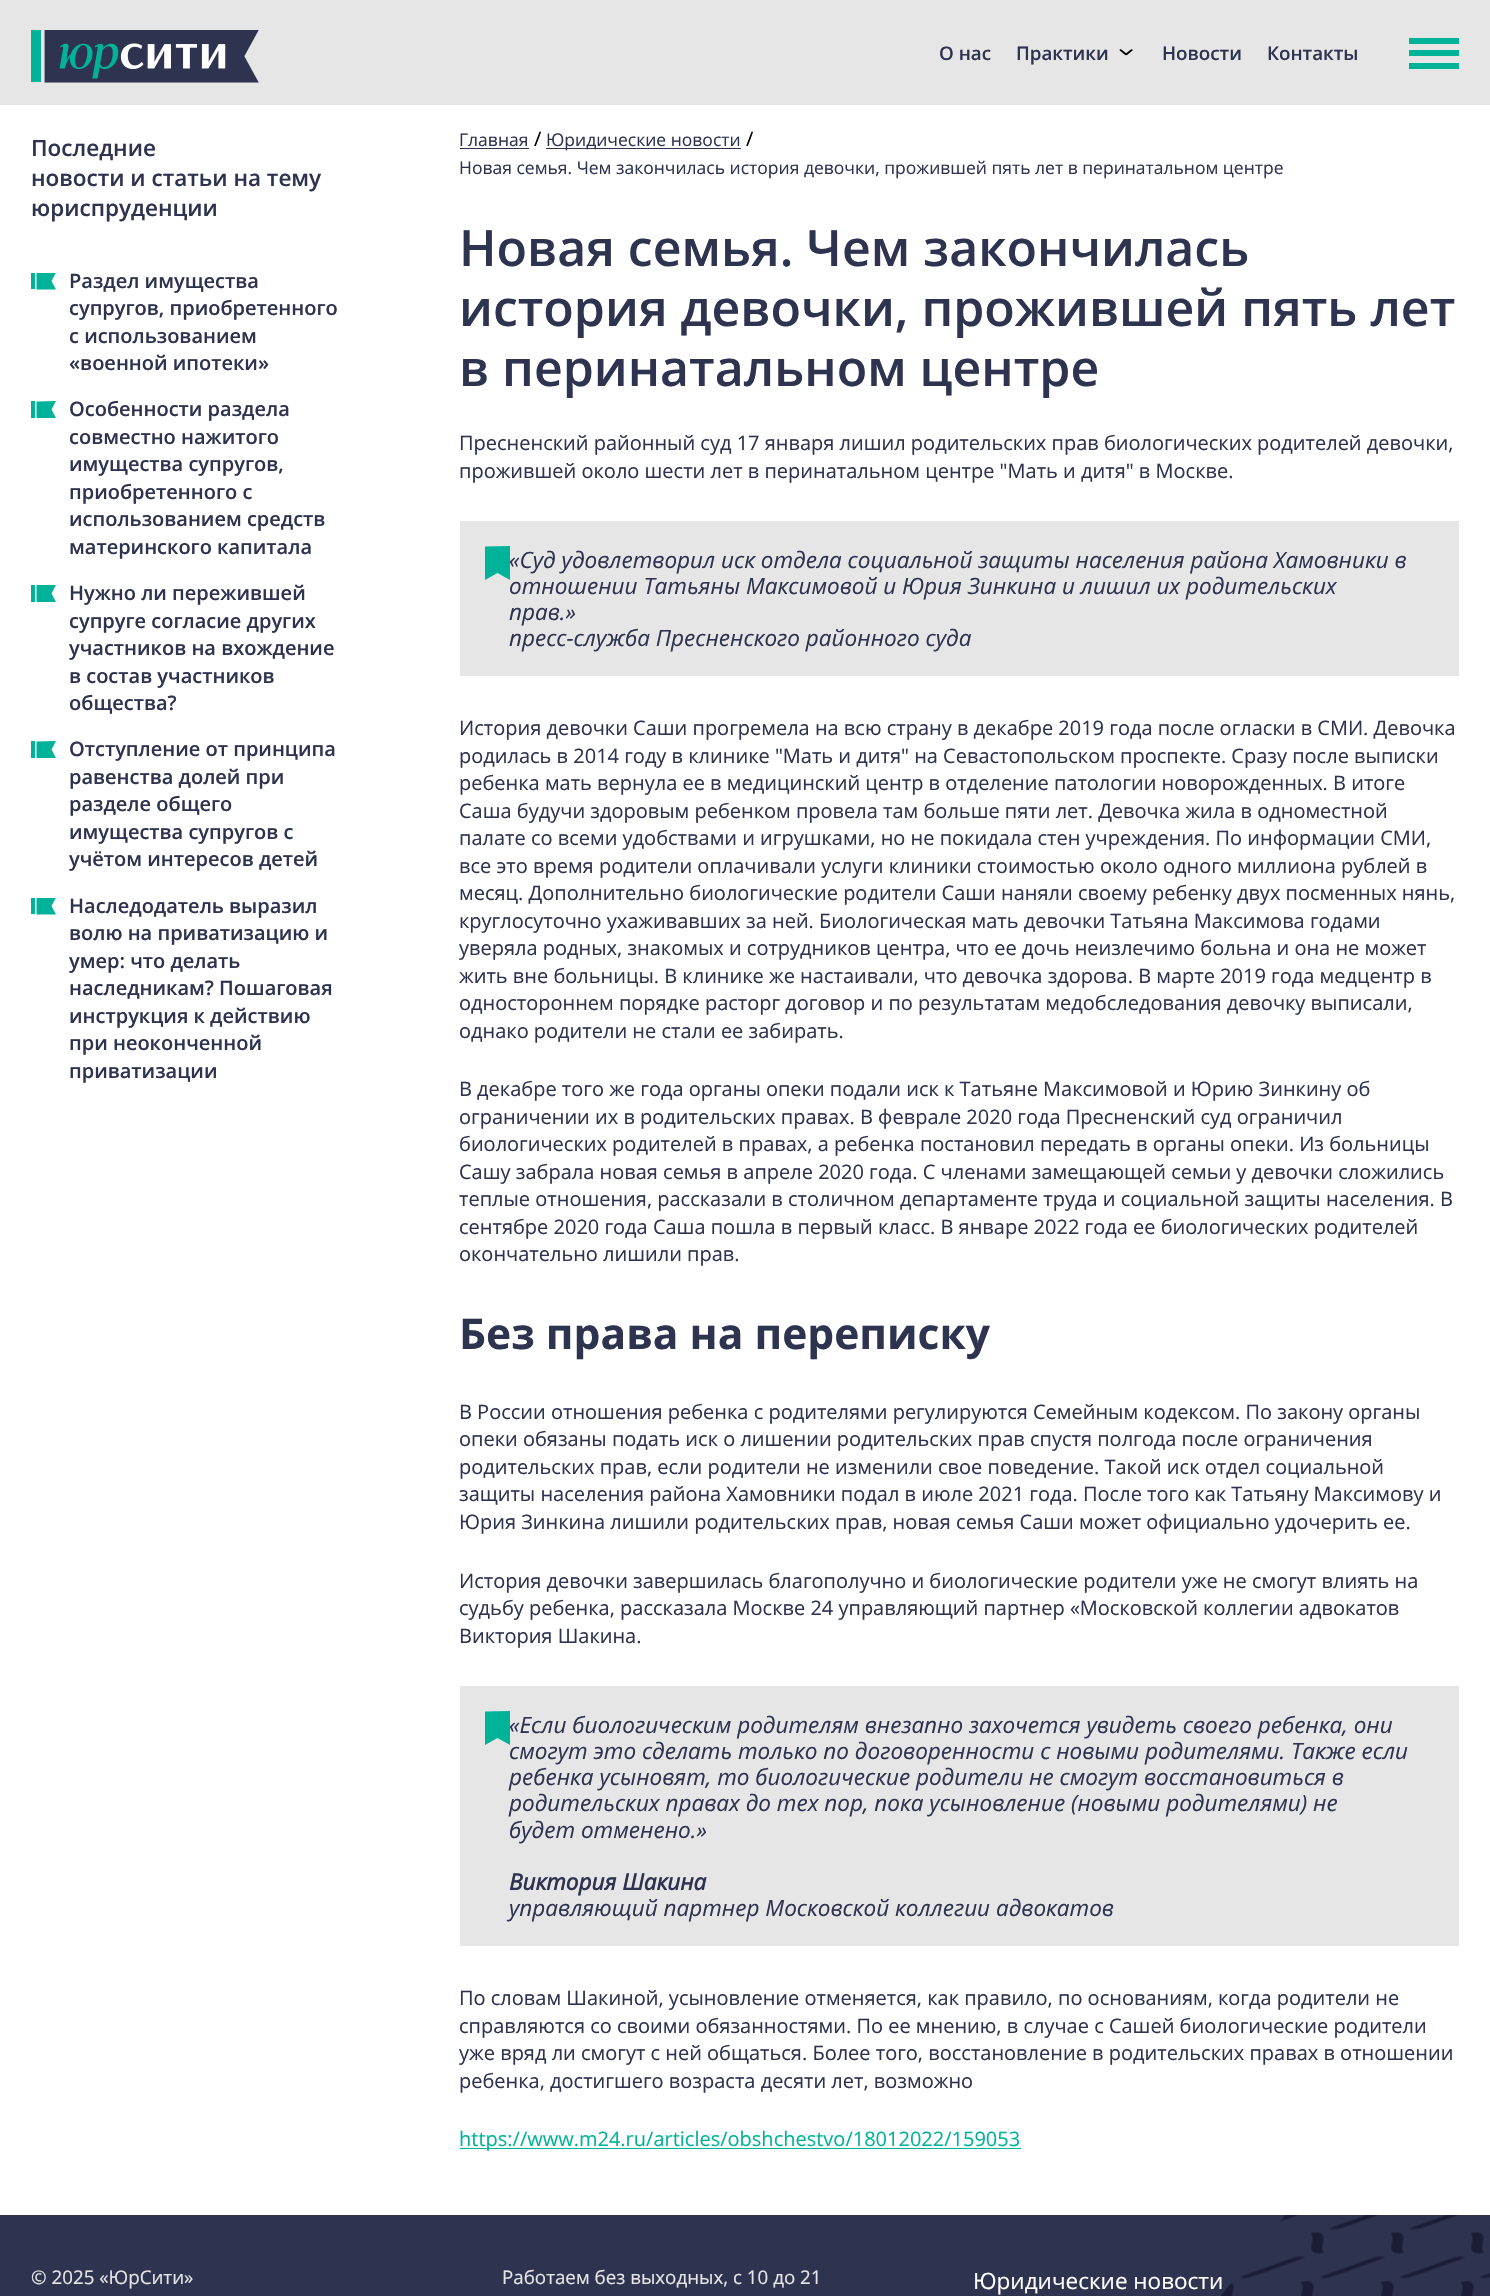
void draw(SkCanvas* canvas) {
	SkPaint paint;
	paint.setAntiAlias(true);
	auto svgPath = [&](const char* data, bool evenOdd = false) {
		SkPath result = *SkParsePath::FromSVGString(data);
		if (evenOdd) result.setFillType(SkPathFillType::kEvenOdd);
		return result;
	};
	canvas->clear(0xffffffff);
	paint.setColor(0xffe6e6e6);
	canvas->drawRect(SkRect::MakeXYWH(0, 0, 1490, 105), paint);
	canvas->drawImageRect(SkImages::DeferredFromEncodedData(SkData::MakeFromFileName("img1.png")), SkRect::MakeXYWH(31, 30, 228, 53), SkSamplingOptions());
	SkFont f1(fontMgr->matchFamilyStyle("Open Sans", SkFontStyle(600, SkFontStyle::kNormal_Width, SkFontStyle::kUpright_Slant)), 18.75);
	f1.setSubpixel(true);
	paint.setColor(0xff2e3350);
	canvas->drawString("О нас", 939, 60, f1, paint);
	canvas->drawString("Практики", 1016, 60, f1, paint);
	canvas->drawImageRect(SkImages::DeferredFromEncodedData(SkData::MakeFromFileName("img2.png")), SkRect::MakeXYWH(1119, 49, 14, 7), SkSamplingOptions());
	canvas->drawString("Новости", 1162, 60, f1, paint);
	canvas->drawString("Контакты", 1267, 60, f1, paint);
	paint.setColor(0xff00b398);
	canvas->drawRect(SkRect::MakeXYWH(1409, 38, 50, 6), paint);
	canvas->drawRect(SkRect::MakeXYWH(1409, 50, 50, 6), paint);
	canvas->drawRect(SkRect::MakeXYWH(1409, 63, 50, 6), paint);
	SkFont f2(fontMgr->matchFamilyStyle("Open Sans", SkFontStyle(600, SkFontStyle::kNormal_Width, SkFontStyle::kUpright_Slant)), 22.5);
	f2.setSubpixel(true);
	paint.setColor(0xff2e3350);
	canvas->drawString("Последние", 31, 156, f2, paint);
	canvas->drawString("новости и статьи на тему", 31, 186, f2, paint);
	canvas->drawString("юриспруденции", 31, 216, f2, paint);
	canvas->save();
	canvas->clipRect(SkRect::MakeXYWH(31, 273, 25, 17));
	paint.setColor(0xff00b398);
	canvas->drawPath(svgPath("M36.5 289.5V272.5H56L51.5 281L56 289.5Z"), paint);
	canvas->restore();
	canvas->drawRect(SkRect::MakeXYWH(31, 273, 4, 16), paint);
	SkFont f3(fontMgr->matchFamilyStyle("Open Sans", SkFontStyle(600, SkFontStyle::kNormal_Width, SkFontStyle::kUpright_Slant)), 20);
	f3.setSubpixel(true);
	paint.setColor(0xff2e3350);
	canvas->drawString("Раздел имущества", 69, 288, f3, paint);
	canvas->drawString("супругов, приобретенного", 69, 315, f3, paint);
	canvas->drawString("с использованием", 69, 343, f3, paint);
	canvas->drawString("«военной ипотеки»", 69, 370, f3, paint);
	paint.setColor(0xff00b398);
	canvas->drawPath(svgPath("M36.5 418V401.5L56 401L51.5 409.5L56 418Z"), paint);
	canvas->drawRect(SkRect::MakeXYWH(31, 401, 4, 17), paint);
	paint.setColor(0xff2e3350);
	canvas->drawString("Особенности раздела", 69, 416, f3, paint);
	canvas->drawString("совместно нажитого", 69, 444, f3, paint);
	canvas->drawString("имущества супругов,", 69, 471, f3, paint);
	canvas->drawString("приобретенного с", 69, 499, f3, paint);
	canvas->drawString("использованием средств", 69, 526, f3, paint);
	canvas->drawString("материнского капитала", 69, 554, f3, paint);
	paint.setColor(0xff00b398);
	canvas->drawPath(svgPath("M36.5 602V585H56L51.5 593.5L56 602Z"), paint);
	canvas->drawRect(SkRect::MakeXYWH(31, 585, 4, 17), paint);
	paint.setColor(0xff2e3350);
	canvas->drawString("Нужно ли пережившей", 69, 600, f3, paint);
	canvas->drawString("супруге согласие других", 69, 628, f3, paint);
	canvas->drawString("участников на вхождение", 69, 655, f3, paint);
	canvas->drawString("в состав участников", 69, 683, f3, paint);
	canvas->drawString("общества?", 69, 710, f3, paint);
	paint.setColor(0xff00b398);
	canvas->drawPath(svgPath("M36.5 758V741.5L56 741L51.5 749.5L56 758Z"), paint);
	canvas->drawRect(SkRect::MakeXYWH(31, 741, 4, 17), paint);
	paint.setColor(0xff2e3350);
	canvas->drawString("Отступление от принципа", 69, 756, f3, paint);
	canvas->drawString("равенства долей при", 69, 784, f3, paint);
	canvas->drawString("разделе общего", 69, 811, f3, paint);
	canvas->drawString("имущества супругов с", 69, 839, f3, paint);
	canvas->drawString("учётом интересов детей", 69, 866, f3, paint);
	canvas->save();
	canvas->clipRect(SkRect::MakeXYWH(31, 898, 25, 17));
	paint.setColor(0xff00b398);
	canvas->drawPath(svgPath("M36.5 914.5V897.5H56L51.5 906L56 914.5Z"), paint);
	canvas->restore();
	canvas->drawRect(SkRect::MakeXYWH(31, 898, 4, 16), paint);
	paint.setColor(0xff2e3350);
	canvas->drawString("Наследодатель выразил", 69, 913, f3, paint);
	canvas->drawString("волю на приватизацию и", 69, 940, f3, paint);
	canvas->drawString("умер: что делать", 69, 968, f3, paint);
	canvas->drawString("наследникам? Пошаговая", 69, 995, f3, paint);
	canvas->drawString("инструкция к действию", 69, 1023, f3, paint);
	canvas->drawString("при неоконченной", 69, 1050, f3, paint);
	canvas->drawString("приватизации", 69, 1078, f3, paint);
	SkFont f4(fontMgr->matchFamilyStyle("Open Sans", SkFontStyle::Normal()), 17.5);
	f4.setSubpixel(true);
	canvas->drawString("Главная", 459, 146, f4, paint);
	canvas->drawRect(SkRect::MakeXYWH(460, 148, 69, 1), paint);
	SkFont f5(fontMgr->matchFamilyStyle("Open Sans", SkFontStyle::Normal()), 20);
	f5.setSubpixel(true);
	paint.setColor(0xff000000);
	canvas->drawString("/", 534, 146, f5, paint);
	paint.setColor(0xff2e3350);
	canvas->drawRect(SkRect::MakeXYWH(546, 148, 195, 1), paint);
	canvas->drawString("Юридические новости", 546, 146, f4, paint);
	paint.setColor(0xff000000);
	canvas->drawString("/", 746, 146, f5, paint);
	paint.setColor(0xff2e3350);
	canvas->drawString("Новая семья. Чем закончилась история девочки, прожившей пять лет в перинатальном центре", 459, 174, f4, paint);
	SkFont f6(fontMgr->matchFamilyStyle("Open Sans", SkFontStyle(600, SkFontStyle::kNormal_Width, SkFontStyle::kUpright_Slant)), 50);
	f6.setSubpixel(true);
	canvas->drawString("Новая семья. Чем закончилась", 459, 266, f6, paint);
	canvas->drawString("история девочки, прожившей пять лет", 459, 326, f6, paint);
	canvas->drawString("в перинатальном центре", 459, 386, f6, paint);
	canvas->drawString("Пресненский районный суд 17 января лишил родительских прав биологических родителей девочки,", 459, 450, f5, paint);
	canvas->drawString("прожившей около шести лет в перинатальном центре \"Мать и дитя\" в Москве.", 459, 478, f5, paint);
	paint.setColor(0xffe6e6e6);
	canvas->drawRect(SkRect::MakeXYWH(460, 521, 999, 155), paint);
	paint.setColor(0xff00b398);
	canvas->drawPath(svgPath("M485 546.5L510 546V580L497.5 573L485 580Z"), paint);
	SkFont f7(fontMgr->matchFamilyStyle("Open Sans", SkFontStyle::Italic()), 22.5);
	f7.setSubpixel(true);
	paint.setColor(0xff2e3350);
	canvas->drawString("«Суд удовлетворил иск отдела социальной защиты населения района Хамовники в", 509, 568, f7, paint);
	canvas->drawString("отношении Татьяны Максимовой и Юрия Зинкина и лишил их родительских", 509, 594, f7, paint);
	canvas->drawString("прав.»", 509, 620, f7, paint);
	canvas->drawString("пресс-служба Пресненского районного суда", 509, 646, f7, paint);
	canvas->drawString("История девочки Саши прогремела на всю страну в декабре 2019 года после огласки в СМИ. Девочка", 459, 735, f5, paint);
	canvas->drawString("родилась в 2014 году в клинике \"Мать и дитя\" на Севастопольском проспекте. Сразу после выписки", 459, 763, f5, paint);
	canvas->drawString("ребенка мать вернула ее в медицинский центр в отделение патологии новорожденных. В итоге", 459, 790, f5, paint);
	canvas->drawString("Саша будучи здоровым ребенком провела там больше пяти лет. Девочка жила в одноместной", 459, 818, f5, paint);
	canvas->drawString("палате со всеми удобствами и игрушками, но не покидала стен учреждения. По информации СМИ,", 459, 845, f5, paint);
	canvas->drawString("все это время родители оплачивали услуги клиники стоимостью около одного миллиона рублей в", 459, 873, f5, paint);
	canvas->drawString("месяц. Дополнительно биологические родители Саши наняли своему ребенку двух посменных нянь,", 459, 900, f5, paint);
	canvas->drawString("круглосуточно ухаживавших за ней. Биологическая мать девочки Татьяна Максимова годами", 459, 928, f5, paint);
	canvas->drawString("уверяла родных, знакомых и сотрудников центра, что ее дочь неизлечимо больна и она не может", 459, 955, f5, paint);
	canvas->drawString("жить вне больницы. В клинике же настаивали, что девочка здорова. В марте 2019 года медцентр в", 459, 983, f5, paint);
	canvas->drawString("одностороннем порядке расторг договор и по результатам медобследования девочку выписали,", 459, 1010, f5, paint);
	canvas->drawString("однако родители не стали ее забирать.", 459, 1038, f5, paint);
	canvas->drawString("В декабре того же года органы опеки подали иск к Татьяне Максимовой и Юрию Зинкину об", 459, 1096, f5, paint);
	canvas->drawString("ограничении их в родительских правах. В феврале 2020 года Пресненский суд ограничил", 459, 1124, f5, paint);
	canvas->drawString("биологических родителей в правах, а ребенка постановил передать в органы опеки. Из больницы", 459, 1151, f5, paint);
	canvas->drawString("Сашу забрала новая семья в апреле 2020 года. C членами замещающей семьи у девочки сложились", 459, 1179, f5, paint);
	canvas->drawString("теплые отношения, рассказали в столичном департаменте труда и социальной защиты населения. В", 459, 1206, f5, paint);
	canvas->drawString("сентябре 2020 года Саша пошла в первый класс. В январе 2022 года ее биологических родителей", 459, 1234, f5, paint);
	canvas->drawString("окончательно лишили прав.", 459, 1261, f5, paint);
	SkFont f8(fontMgr->matchFamilyStyle("Open Sans", SkFontStyle::Bold()), 42.5);
	f8.setSubpixel(true);
	canvas->drawString("Без права на переписку", 459, 1349, f8, paint);
	canvas->drawString("В России отношения ребенка с родителями регулируются Семейным кодексом. По закону органы", 459, 1419, f5, paint);
	canvas->drawString("опеки обязаны подать иск о лишении родительских прав спустя полгода после ограничения", 459, 1446, f5, paint);
	canvas->drawString("родительских прав, если родители не изменили свое поведение. Такой иск отдел социальной", 459, 1474, f5, paint);
	canvas->drawString("защиты населения района Хамовники подал в июле 2021 года. После того как Татьяну Максимову и", 459, 1501, f5, paint);
	canvas->drawString("Юрия Зинкина лишили родительских прав, новая семья Саши может официально удочерить ее.", 459, 1529, f5, paint);
	canvas->drawString("История девочки завершилась благополучно и биологические родители уже не смогут влиять на", 459, 1588, f5, paint);
	canvas->drawString("судьбу ребенка, рассказала Москве 24 управляющий партнер «Московской коллегии адвокатов", 459, 1615, f5, paint);
	canvas->drawString("Виктория Шакина.", 459, 1643, f5, paint);
	paint.setColor(0xffe6e6e6);
	canvas->drawRect(SkRect::MakeXYWH(460, 1686, 999, 260), paint);
	paint.setColor(0xff00b398);
	canvas->drawPath(svgPath("M485 1711.5L510 1711V1745L497.5 1738L485 1745Z"), paint);
	paint.setColor(0xff2e3350);
	canvas->drawString("«Если биологическим родителям внезапно захочется увидеть своего ребенка, они", 509, 1733, f7, paint);
	canvas->drawString("смогут это сделать только по договоренности с новыми родителями. Также если", 509, 1759, f7, paint);
	canvas->drawString("ребенка усыновят, то биологические родители не смогут восстановиться в", 509, 1785, f7, paint);
	canvas->drawString("родительских правах до тех пор, пока усыновление (новыми родителями) не", 509, 1811, f7, paint);
	canvas->drawString("будет отменено.»", 509, 1838, f7, paint);
	SkFont f9(fontMgr->matchFamilyStyle("Open Sans", SkFontStyle::BoldItalic()), 22.5);
	f9.setSubpixel(true);
	canvas->drawString("Виктория Шакина", 509, 1890, f9, paint);
	canvas->drawString("управляющий партнер Московской коллегии адвокатов", 509, 1916, f7, paint);
	canvas->drawString("По словам Шакиной, усыновление отменяется, как правило, по основаниям, когда родители не", 459, 2005, f5, paint);
	canvas->drawString("справляются со своими обязанностями. По ее мнению, в случае с Сашей биологические родители", 459, 2033, f5, paint);
	canvas->drawString("уже вряд ли смогут с ней общаться. Более того, восстановление в родительских правах в отношении", 459, 2060, f5, paint);
	canvas->drawString("ребенка, достигшего возраста десяти лет, возможно", 459, 2088, f5, paint);
	paint.setColor(0xff00b398);
	canvas->drawRect(SkRect::MakeXYWH(460, 2148, 561, 1), paint);
	canvas->drawString("https://www.m24.ru/articles/obshchestvo/18012022/159053", 459, 2146, f5, paint);
	paint.setColor(0xff2e3350);
	canvas->drawRect(SkRect::MakeXYWH(0, 2215, 1490, 81), paint);
	canvas->drawImageRect(SkImages::DeferredFromEncodedData(SkData::MakeFromFileName("img3.png")), SkRect::MakeXYWH(1221, 2215, 269, 81), SkSamplingOptions());
	SkFont f10(fontMgr->matchFamilyStyle("Open Sans", SkFontStyle::Normal()), 18.75);
	f10.setSubpixel(true);
	paint.setColor(0xffe6e6e6);
	canvas->drawString("© 2025 «ЮрСити»", 31, 2284, f10, paint);
	canvas->drawString("Работаем без выходных, с 10 до 21", 502, 2284, f10, paint);
	SkFont f11(fontMgr->matchFamilyStyle("Open Sans", SkFontStyle::Normal()), 22.5);
	f11.setSubpixel(true);
	paint.setColor(0xffffffff);
	canvas->drawString("Юридические новости", 973, 2289, f11, paint);
}
